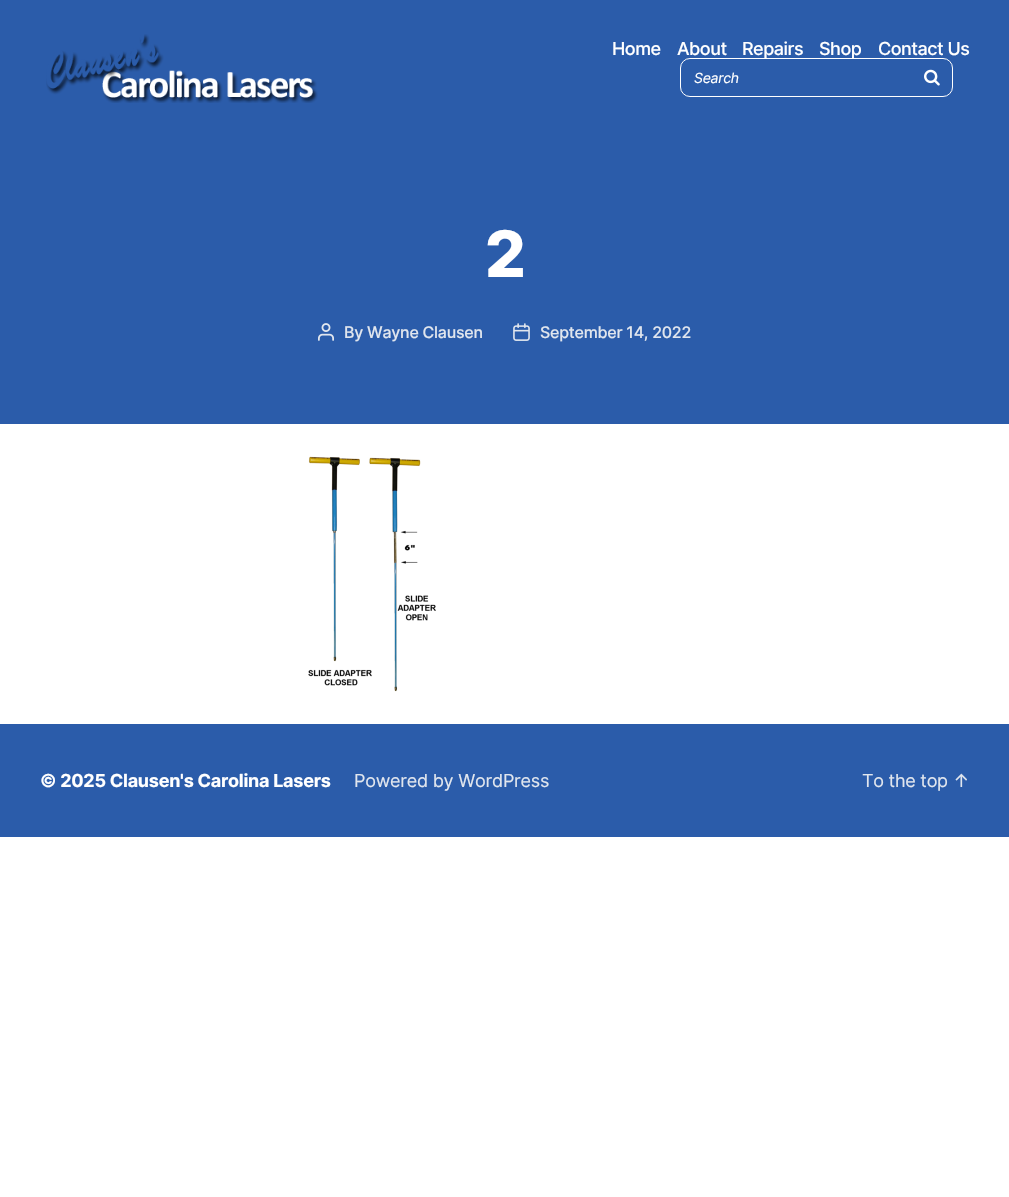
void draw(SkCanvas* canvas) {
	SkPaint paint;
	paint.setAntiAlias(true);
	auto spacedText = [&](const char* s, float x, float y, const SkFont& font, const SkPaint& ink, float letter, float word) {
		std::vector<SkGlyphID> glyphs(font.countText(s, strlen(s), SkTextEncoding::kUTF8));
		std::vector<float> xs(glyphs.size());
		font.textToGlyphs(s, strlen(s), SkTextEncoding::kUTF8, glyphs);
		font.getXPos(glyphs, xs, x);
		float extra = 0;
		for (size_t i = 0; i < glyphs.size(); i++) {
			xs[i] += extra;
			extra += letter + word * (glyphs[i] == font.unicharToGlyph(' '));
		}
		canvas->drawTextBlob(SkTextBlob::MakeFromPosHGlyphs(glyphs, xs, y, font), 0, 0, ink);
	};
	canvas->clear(0xffffffff);
	paint.setColor(0xff2b5caa);
	canvas->drawRect(SkRect::MakeXYWH(0, 0, 1009, 424), paint);
	canvas->drawImageRect(SkImages::DeferredFromEncodedData(SkData::MakeFromFileName("img1.png")), SkRect::MakeXYWH(46, 34, 272, 69), SkSamplingOptions());
	SkFont f1(fontMgr->matchFamilyStyle("Inter", SkFontStyle(500, SkFontStyle::kNormal_Width, SkFontStyle::kUpright_Slant)), 18);
	f1.setSubpixel(true);
	paint.setColor(0xffffffff);
	spacedText("Home", 612, 55, f1, paint, -0.5, 0);
	spacedText("About", 677, 55, f1, paint, -0.5, 0);
	spacedText("Repairs", 742, 55, f1, paint, -0.5, 0);
	spacedText("Shop", 819, 55, f1, paint, -0.5, 0);
	spacedText("Contact Us", 878, 55, f1, paint, -0.5, 0);
	paint.setStroke(true);
	paint.setStrokeWidth(1);
	canvas->drawRoundRect(SkRect::MakeXYWH(680.5, 58.5, 272, 38), 9.5, 9.5, paint);
	SkFont f2(fontMgr->matchFamilyStyle("Inter", SkFontStyle::Italic()), 14);
	f2.setSubpixel(true);
	paint.setStroke(false);
	spacedText("Search", 694, 83, f2, paint, -0.25, 0);
	canvas->drawImageRect(SkImages::DeferredFromEncodedData(SkData::MakeFromFileName("img2.png")), SkRect::MakeXYWH(924, 69, 16, 17), SkSamplingOptions());
	SkFont f3(fontMgr->matchFamilyStyle("Inter", SkFontStyle(800, SkFontStyle::kNormal_Width, SkFontStyle::kUpright_Slant)), 64);
	f3.setSubpixel(true);
	spacedText("2", 485, 277, f3, paint, -3, 0);
	canvas->drawImageRect(SkImages::DeferredFromEncodedData(SkData::MakeFromFileName("img3.png")), SkRect::MakeXYWH(318, 323, 16, 18), SkSamplingOptions());
	SkFont f4(fontMgr->matchFamilyStyle("Inter", SkFontStyle(500, SkFontStyle::kNormal_Width, SkFontStyle::kUpright_Slant)), 16);
	f4.setSubpixel(true);
	paint.setColor(0xffe1e6ee);
	spacedText("By Wayne Clausen", 344, 338, f4, paint, -0.25, 0);
	canvas->drawImageRect(SkImages::DeferredFromEncodedData(SkData::MakeFromFileName("img4.png")), SkRect::MakeXYWH(513, 323, 17, 18), SkSamplingOptions());
	spacedText("September 14, 2022", 540, 338, f4, paint, -0.25, 0);
	canvas->drawImageRect(SkImages::DeferredFromEncodedData(SkData::MakeFromFileName("img5.png")), SkRect::MakeXYWH(308, 456, 128, 236), SkSamplingOptions());
	paint.setColor(0xff2b5caa);
	canvas->drawRect(SkRect::MakeXYWH(0, 724, 1009, 113), paint);
	SkFont f5(fontMgr->matchFamilyStyle("Inter", SkFontStyle::Bold()), 18);
	f5.setSubpixel(true);
	paint.setColor(0xffffffff);
	spacedText("© 2025 Clausen's Carolina Lasers", 40, 787, f5, paint, -0.25, 0);
	SkFont f6(fontMgr->matchFamilyStyle("Inter", SkFontStyle::Normal()), 18);
	f6.setSubpixel(true);
	paint.setColor(0xffe1e6ee);
	spacedText("Powered by WordPress", 354, 787, f6, paint, -0.25, 0);
	spacedText("To the top ↑", 862, 787, f6, paint, -0.25, 0);
}
